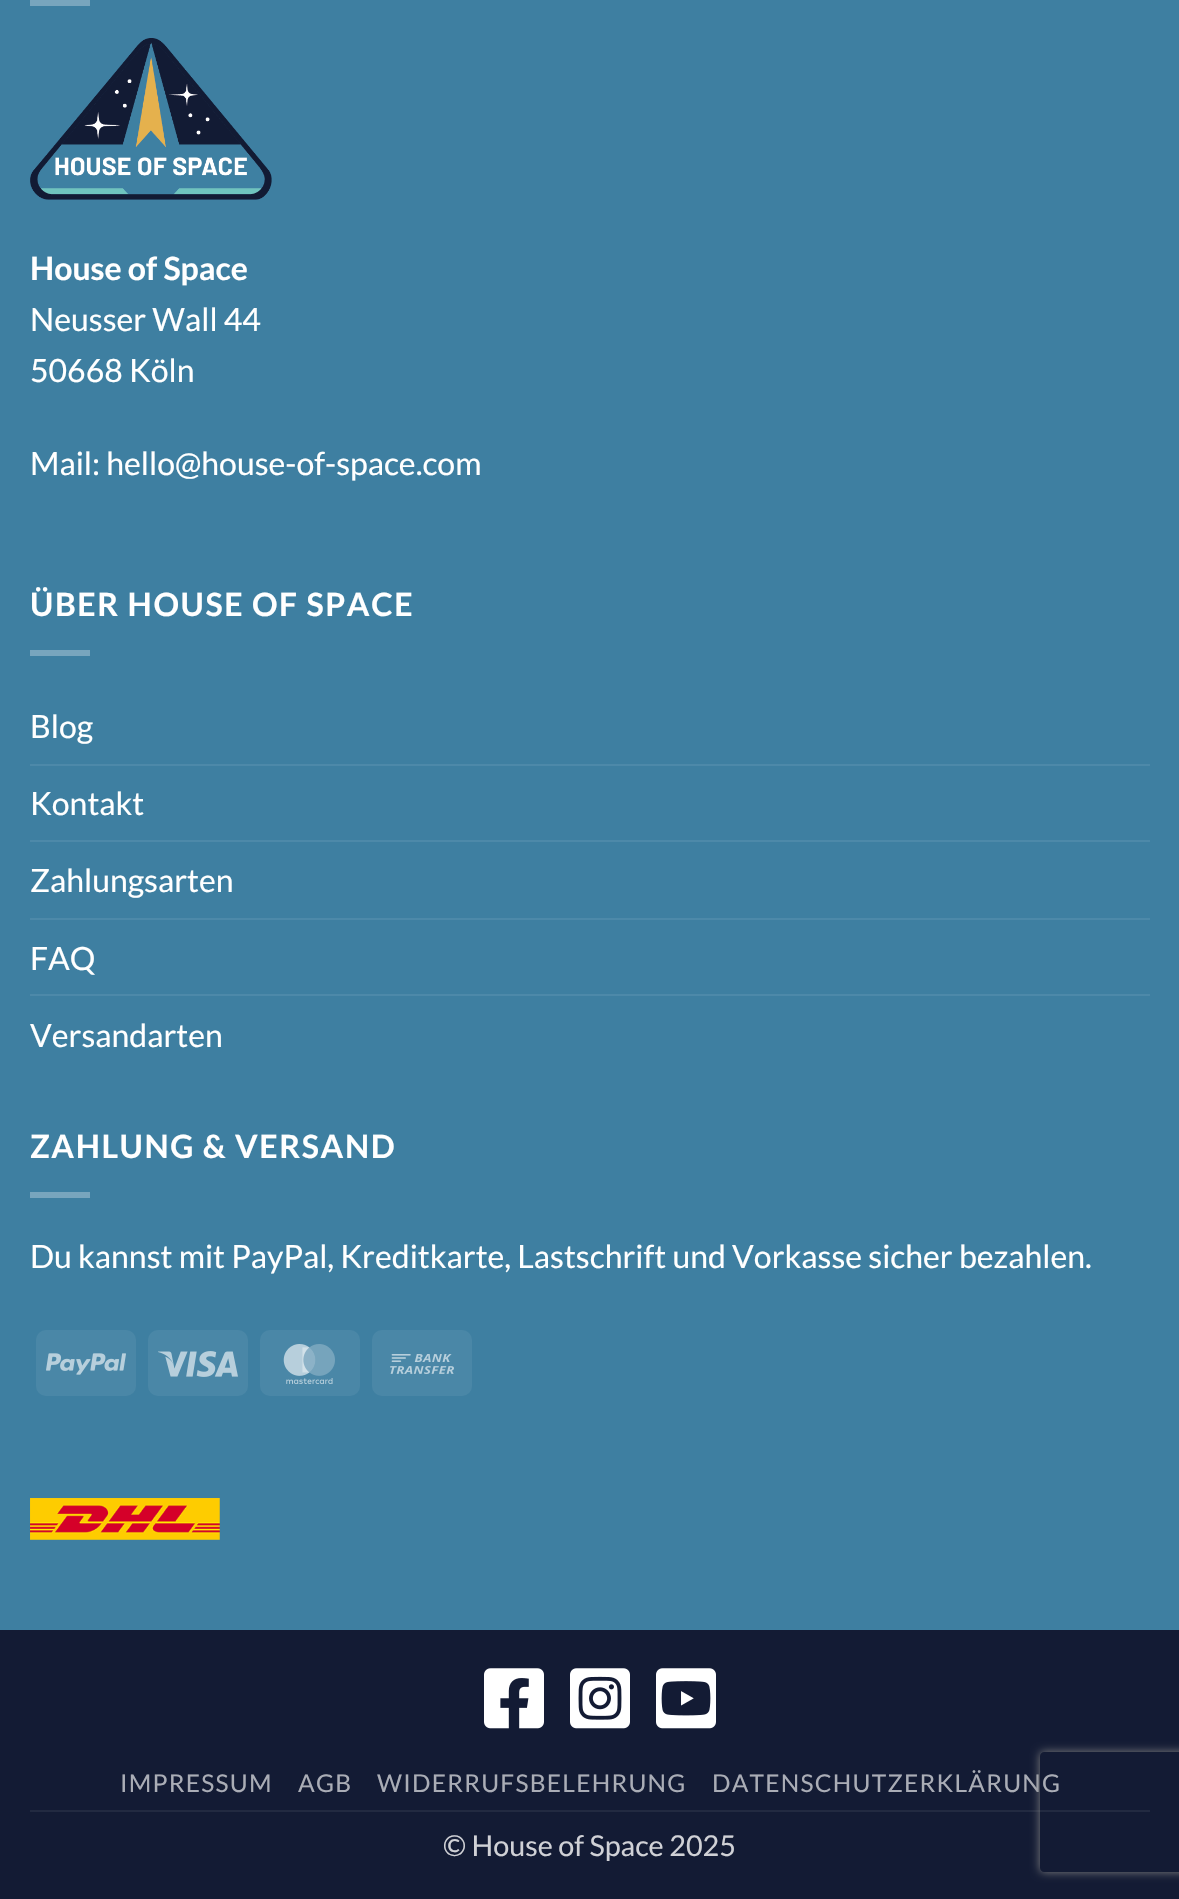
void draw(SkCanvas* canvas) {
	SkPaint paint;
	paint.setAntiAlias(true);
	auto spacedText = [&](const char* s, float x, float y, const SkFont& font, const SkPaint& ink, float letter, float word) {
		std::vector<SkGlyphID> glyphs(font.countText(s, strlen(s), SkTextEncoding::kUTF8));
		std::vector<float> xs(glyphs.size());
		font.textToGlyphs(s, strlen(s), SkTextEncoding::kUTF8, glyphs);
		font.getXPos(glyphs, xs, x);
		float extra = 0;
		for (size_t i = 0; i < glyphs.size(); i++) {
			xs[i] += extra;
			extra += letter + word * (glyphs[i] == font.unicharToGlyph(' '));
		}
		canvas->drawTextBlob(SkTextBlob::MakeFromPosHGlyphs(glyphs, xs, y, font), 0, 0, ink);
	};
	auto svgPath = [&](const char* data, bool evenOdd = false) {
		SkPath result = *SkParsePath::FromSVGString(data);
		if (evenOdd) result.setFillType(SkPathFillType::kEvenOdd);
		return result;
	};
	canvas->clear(0xff131b34);
	paint.setColor(0xff3e7fa1);
	canvas->drawRect(SkRect::MakeXYWH(0, 0, 1179, 1630), paint);
	paint.setColor(0xff78a5bd);
	canvas->drawRect(SkRect::MakeXYWH(30, 0, 60, 6), paint);
	canvas->drawImageRect(SkImages::DeferredFromEncodedData(SkData::MakeFromFileName("img1.png")), SkRect::MakeXYWH(30, 38, 242, 162), SkSamplingOptions());
	SkFont f1(fontMgr->matchFamilyStyle("Lato", SkFontStyle::Bold()), 32);
	f1.setSubpixel(true);
	paint.setColor(0xffffffff);
	canvas->drawString("House of Space", 30, 280, f1, paint);
	SkFont f2(fontMgr->matchFamilyStyle("Lato", SkFontStyle::Normal()), 32);
	f2.setSubpixel(true);
	canvas->drawString("Neusser Wall 44", 30, 331, f2, paint);
	canvas->drawString("50668 Köln", 30, 382, f2, paint);
	canvas->drawString("Mail: hello@house-of-space.com", 30, 475, f2, paint);
	spacedText("ÜBER HOUSE OF SPACE", 30, 616, f1, paint, 1.6, 0);
	paint.setColor(0xff78a5bd);
	canvas->drawRect(SkRect::MakeXYWH(30, 650, 60, 6), paint);
	paint.setColor(0xffffffff);
	canvas->drawString("Blog", 30, 738, f2, paint);
	paint.setColor(0xff4d89a9);
	canvas->drawRect(SkRect::MakeXYWH(30, 764, 1120, 2), paint);
	paint.setColor(0xffffffff);
	canvas->drawString("Kontakt", 30, 815, f2, paint);
	paint.setColor(0xff4d89a9);
	canvas->drawRect(SkRect::MakeXYWH(30, 840, 1120, 2), paint);
	paint.setColor(0xffffffff);
	canvas->drawString("Zahlungsarten", 30, 892, f2, paint);
	paint.setColor(0xff4d89a9);
	canvas->drawRect(SkRect::MakeXYWH(30, 918, 1120, 2), paint);
	paint.setColor(0xffffffff);
	canvas->drawString("FAQ", 30, 970, f2, paint);
	paint.setColor(0xff4d89a9);
	canvas->drawRect(SkRect::MakeXYWH(30, 994, 1120, 2), paint);
	paint.setColor(0xffffffff);
	canvas->drawString("Versandarten", 30, 1047, f2, paint);
	spacedText("ZAHLUNG & VERSAND", 30, 1158, f1, paint, 1.6, 0);
	paint.setColor(0xff78a5bd);
	canvas->drawRect(SkRect::MakeXYWH(30, 1192, 60, 6), paint);
	paint.setColor(0xffffffff);
	canvas->drawString("Du kannst mit PayPal, Kreditkarte, Lastschrift und Vorkasse sicher bezahlen.", 30, 1268, f2, paint);
	paint.setColor(0xff4a87a7);
	canvas->drawRoundRect(SkRect::MakeXYWH(36, 1330, 100, 66), 10, 10, paint);
	canvas->drawImageRect(SkImages::DeferredFromEncodedData(SkData::MakeFromFileName("img2.png")), SkRect::MakeXYWH(46, 1353, 80, 22), SkSamplingOptions());
	canvas->drawRoundRect(SkRect::MakeXYWH(148, 1330, 100, 66), 10, 10, paint);
	canvas->drawImageRect(SkImages::DeferredFromEncodedData(SkData::MakeFromFileName("img3.png")), SkRect::MakeXYWH(158, 1351, 80, 26), SkSamplingOptions());
	canvas->drawRoundRect(SkRect::MakeXYWH(260, 1330, 100, 66), 10, 10, paint);
	canvas->drawImageRect(SkImages::DeferredFromEncodedData(SkData::MakeFromFileName("img4.png")), SkRect::MakeXYWH(283, 1344, 52, 40), SkSamplingOptions());
	canvas->drawRoundRect(SkRect::MakeXYWH(372, 1330, 100, 66), 10, 10, paint);
	canvas->drawImageRect(SkImages::DeferredFromEncodedData(SkData::MakeFromFileName("img5.png")), SkRect::MakeXYWH(390, 1354, 64, 20), SkSamplingOptions());
	canvas->drawImageRect(SkImages::DeferredFromEncodedData(SkData::MakeFromFileName("img6.png")), SkRect::MakeXYWH(30, 1498, 190, 42), SkSamplingOptions());
	canvas->drawImageRect(SkImages::DeferredFromEncodedData(SkData::MakeFromFileName("img7.png")), SkRect::MakeXYWH(484, 1668, 60, 61), SkSamplingOptions());
	canvas->drawImageRect(SkImages::DeferredFromEncodedData(SkData::MakeFromFileName("img8.png")), SkRect::MakeXYWH(570, 1668, 60, 61), SkSamplingOptions());
	canvas->drawImageRect(SkImages::DeferredFromEncodedData(SkData::MakeFromFileName("img9.png")), SkRect::MakeXYWH(656, 1668, 60, 61), SkSamplingOptions());
	paint.setColor(0xff222a41);
	canvas->drawRect(SkRect::MakeXYWH(30, 1810, 1120, 2), paint);
	SkFont f3(fontMgr->matchFamilyStyle("Lato", SkFontStyle::Normal()), 24.5);
	f3.setSubpixel(true);
	paint.setColor(0xffaaadb6);
	spacedText("IMPRESSUM", 120, 1792, f3, paint, 1.25, 0);
	spacedText("AGB", 298, 1792, f3, paint, 1.25, 0);
	spacedText("WIDERRUFSBELEHRUNG", 377, 1792, f3, paint, 1.25, 0);
	spacedText("DATENSCHUTZERKLÄRUNG", 712, 1792, f3, paint, 1.25, 0);
	SkFont f4(fontMgr->matchFamilyStyle("Lato", SkFontStyle::Normal()), 28.75);
	f4.setSubpixel(true);
	paint.setColor(0xffd0d1d6);
	canvas->drawString("© House of Space 2025", 443, 1856, f4, paint);
	canvas->save();
	canvas->clipPath(svgPath("M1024 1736H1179V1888H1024ZM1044 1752H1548C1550 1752 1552 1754 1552 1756V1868C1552 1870 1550 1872 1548 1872H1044C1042 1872 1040 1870 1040 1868V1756C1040 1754 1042 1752 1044 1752Z", true), true);
	paint.setColor(0xff808080);
	paint.setMaskFilter(SkMaskFilter::MakeBlur(kNormal_SkBlurStyle, 5));
	canvas->drawRoundRect(SkRect::MakeXYWH(1040, 1752, 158, 120), 4, 4, paint);
	paint.setMaskFilter(nullptr);
	canvas->restore();
}
